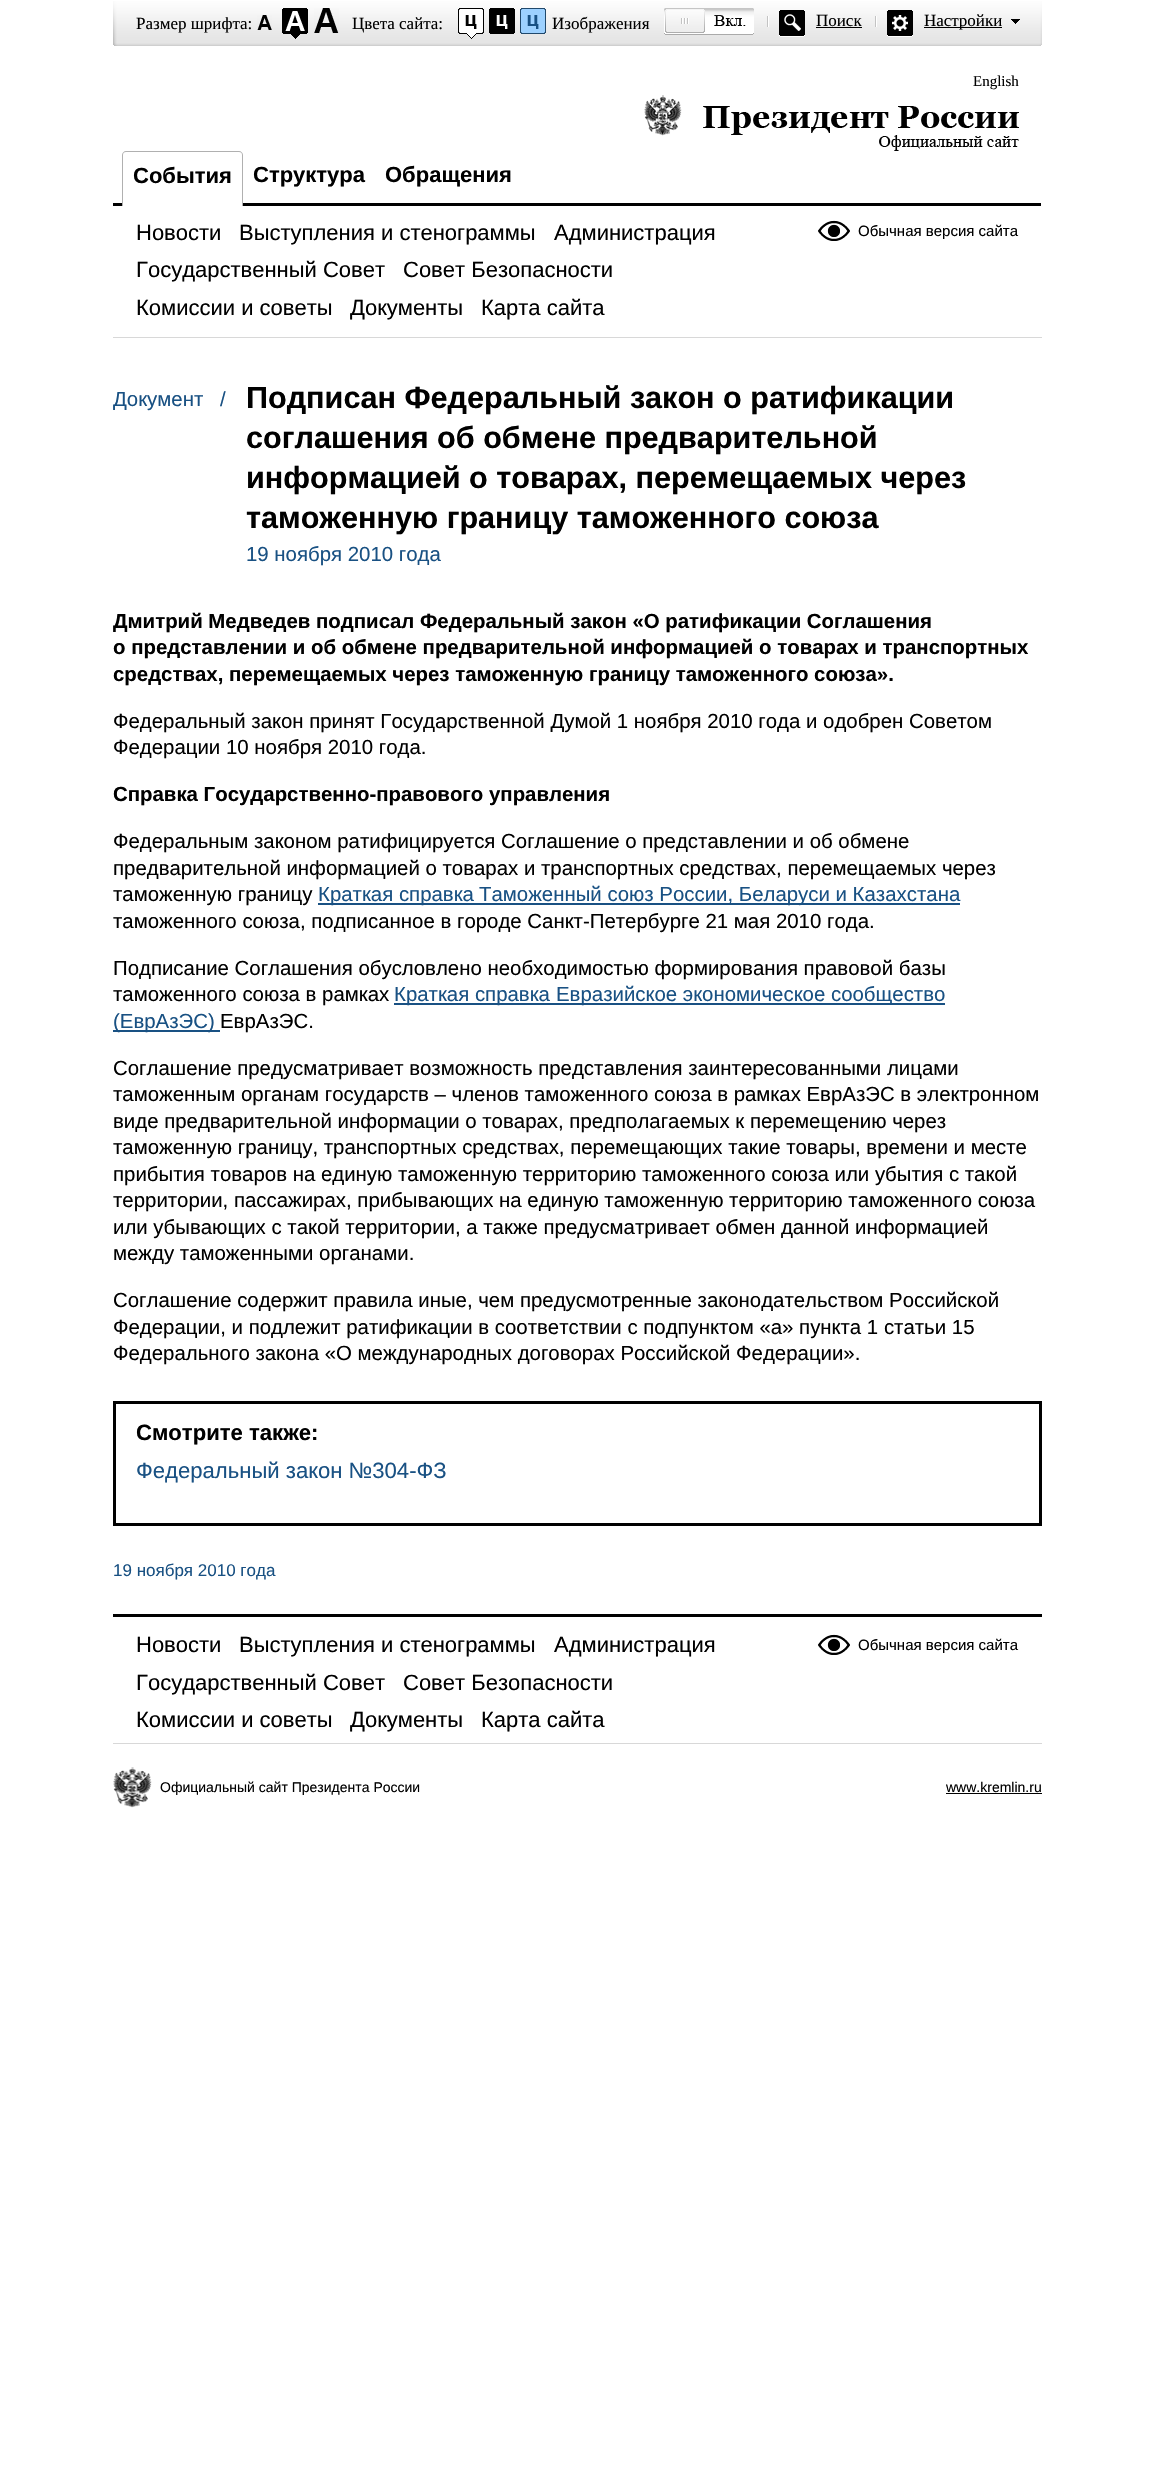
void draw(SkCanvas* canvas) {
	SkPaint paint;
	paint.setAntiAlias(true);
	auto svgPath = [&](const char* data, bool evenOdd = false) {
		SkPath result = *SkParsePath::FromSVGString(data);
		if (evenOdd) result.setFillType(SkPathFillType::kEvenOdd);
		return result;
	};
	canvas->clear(0xffffffff);
	canvas->drawImageRect(SkImages::DeferredFromEncodedData(SkData::MakeFromFileName("img1.png")), SkRect::MakeXYWH(113, 1, 929, 45), SkSamplingOptions());
	SkFont f1(fontMgr->matchFamilyStyle("Liberation Serif", SkFontStyle::Normal()), 17);
	f1.setSubpixel(true);
	paint.setColor(0xff000000);
	canvas->drawString("Размер шрифта:", 136, 29, f1, paint);
	canvas->drawImageRect(SkImages::DeferredFromEncodedData(SkData::MakeFromFileName("img2.png")), SkRect::MakeXYWH(257, 15, 15, 15), SkSamplingOptions());
	canvas->drawImageRect(SkImages::DeferredFromEncodedData(SkData::MakeFromFileName("img3.png")), SkRect::MakeXYWH(282, 8, 26, 31), SkSamplingOptions());
	canvas->drawImageRect(SkImages::DeferredFromEncodedData(SkData::MakeFromFileName("img4.png")), SkRect::MakeXYWH(314, 8, 25, 25), SkSamplingOptions());
	canvas->drawString("Цвета сайта:", 352, 29, f1, paint);
	canvas->drawImageRect(SkImages::DeferredFromEncodedData(SkData::MakeFromFileName("img5.png")), SkRect::MakeXYWH(458, 8, 26, 31), SkSamplingOptions());
	canvas->drawImageRect(SkImages::DeferredFromEncodedData(SkData::MakeFromFileName("img6.png")), SkRect::MakeXYWH(489, 8, 26, 26), SkSamplingOptions());
	canvas->drawImageRect(SkImages::DeferredFromEncodedData(SkData::MakeFromFileName("img7.png")), SkRect::MakeXYWH(520, 8, 26, 26), SkSamplingOptions());
	canvas->drawString("Изображения", 552, 29, f1, paint);
	canvas->drawImageRect(SkImages::DeferredFromEncodedData(SkData::MakeFromFileName("img8.png")), SkRect::MakeXYWH(664, 8, 90, 27), SkSamplingOptions());
	canvas->drawImageRect(SkImages::DeferredFromEncodedData(SkData::MakeFromFileName("img9.png")), SkRect::MakeXYWH(767, 10, 38, 27), SkSamplingOptions());
	canvas->drawString("Поиск", 816, 26, f1, paint);
	canvas->drawRect(SkRect::MakeXYWH(816, 27, 46, 1), paint);
	canvas->drawImageRect(SkImages::DeferredFromEncodedData(SkData::MakeFromFileName("img10.png")), SkRect::MakeXYWH(875, 10, 38, 27), SkSamplingOptions());
	canvas->drawRect(SkRect::MakeXYWH(924, 27, 78, 1), paint);
	canvas->drawString("Настройки", 924, 26, f1, paint);
	canvas->drawImageRect(SkImages::DeferredFromEncodedData(SkData::MakeFromFileName("img11.png")), SkRect::MakeXYWH(1011, 19, 9, 5), SkSamplingOptions());
	SkFont f2(fontMgr->matchFamilyStyle("Liberation Serif", SkFontStyle::Normal()), 15);
	f2.setSubpixel(true);
	canvas->drawString("English", 973, 86, f2, paint);
	canvas->drawImageRect(SkImages::DeferredFromEncodedData(SkData::MakeFromFileName("img12.png")), SkRect::MakeXYWH(644, 95, 375, 56), SkSamplingOptions());
	paint.setColor(0xffd8d8d8);
	canvas->drawRect(SkRect::MakeXYWH(113, 337, 929, 1), paint);
	paint.setColor(0xff000000);
	canvas->drawRect(SkRect::MakeXYWH(113, 203, 928, 3), paint);
	paint.setColor(0xffffffff);
	canvas->drawPath(svgPath("M126 151H239C241 151 243 153 243 155V206H122V155C122 153 124 151 126 151Z"), paint);
	paint.setColor(0xffb0b0b0);
	canvas->drawPath(svgPath("M126 151H239C241 151 243 153 243 155V206H122V155C122 153 124 151 126 151ZM126 152H239C241 152 242 153 242 155V206H123V155C123 153 124 152 126 152Z", true), paint);
	SkFont f3(fontMgr->matchFamilyStyle("Liberation Sans", SkFontStyle::Bold()), 22);
	f3.setSubpixel(true);
	paint.setColor(0xff000000);
	canvas->drawString("События", 133, 183, f3, paint);
	canvas->drawString("Структура", 253, 182, f3, paint);
	canvas->drawString("Обращения", 385, 182, f3, paint);
	SkFont f4(fontMgr->matchFamilyStyle("Liberation Sans", SkFontStyle::Normal()), 22);
	f4.setSubpixel(true);
	canvas->drawString("Новости", 136, 240, f4, paint);
	canvas->drawString("Выступления и стенограммы", 239, 240, f4, paint);
	canvas->drawString("Администрация", 554, 240, f4, paint);
	canvas->drawString("Государственный Совет", 136, 277, f4, paint);
	canvas->drawString("Совет Безопасности", 403, 277, f4, paint);
	canvas->drawString("Комиссии и советы", 136, 315, f4, paint);
	canvas->drawString("Документы", 350, 315, f4, paint);
	canvas->drawString("Карта сайта", 481, 315, f4, paint);
	canvas->drawImageRect(SkImages::DeferredFromEncodedData(SkData::MakeFromFileName("img13.png")), SkRect::MakeXYWH(818, 220, 32, 21), SkSamplingOptions());
	SkFont f5(fontMgr->matchFamilyStyle("Liberation Sans", SkFontStyle::Normal()), 15);
	f5.setSubpixel(true);
	canvas->drawString("Обычная версия сайта", 858, 236, f5, paint);
	SkFont f6(fontMgr->matchFamilyStyle("Liberation Sans", SkFontStyle::Normal()), 20.4);
	f6.setSubpixel(true);
	paint.setColor(0xff195183);
	canvas->drawString("Документ", 113, 406, f6, paint);
	canvas->drawString("/", 220, 406, f6, paint);
	SkFont f7(fontMgr->matchFamilyStyle("Liberation Sans", SkFontStyle::Bold()), 30.6);
	f7.setSubpixel(true);
	paint.setColor(0xff000000);
	canvas->drawString("Подписан Федеральный закон о ратификации", 246, 408, f7, paint);
	canvas->drawString("соглашения об обмене предварительной", 246, 448, f7, paint);
	canvas->drawString("информацией о товарах, перемещаемых через", 246, 488, f7, paint);
	canvas->drawString("таможенную границу таможенного союза", 246, 528, f7, paint);
	paint.setColor(0xff195183);
	canvas->drawString("19 ноября 2010 года", 246, 561, f6, paint);
	SkFont f8(fontMgr->matchFamilyStyle("Liberation Sans", SkFontStyle::Bold()), 20.4);
	f8.setSubpixel(true);
	paint.setColor(0xff000000);
	canvas->drawString("Дмитрий Медведев подписал Федеральный закон «О ратификации Соглашения", 113, 628, f8, paint);
	canvas->drawString("о представлении и об обмене предварительной информацией о товарах и транспортных", 113, 654, f8, paint);
	canvas->drawString("средствах, перемещаемых через таможенную границу таможенного союза».", 113, 681, f8, paint);
	canvas->drawString("Федеральный закон принят Государственной Думой 1 ноября 2010 года и одобрен Советом", 113, 728, f6, paint);
	canvas->drawString("Федерации 10 ноября 2010 года.", 113, 754, f6, paint);
	canvas->drawString("Справка Государственно-правового управления", 113, 801, f8, paint);
	canvas->drawString("Федеральным законом ратифицируется Соглашение о представлении и об обмене", 113, 848, f6, paint);
	canvas->drawString("предварительной информацией о товарах и транспортных средствах, перемещаемых через", 113, 875, f6, paint);
	canvas->drawString("таможенную границу", 113, 901, f6, paint);
	paint.setColor(0xff195183);
	canvas->drawRect(SkRect::MakeXYWH(318, 903, 155, 2), paint);
	canvas->drawString("Краткая справка", 318, 901, f6, paint);
	canvas->drawRect(SkRect::MakeXYWH(473, 903, 487, 2), paint);
	canvas->drawString("Таможенный союз России, Беларуси и Казахстана", 479, 901, f6, paint);
	paint.setColor(0xff000000);
	canvas->drawString("таможенного союза, подписанное в городе Санкт-Петербурге 21 мая 2010 года.", 113, 928, f6, paint);
	canvas->drawString("Подписание Соглашения обусловлено необходимостью формирования правовой базы", 113, 975, f6, paint);
	canvas->drawString("таможенного союза в рамках", 113, 1001, f6, paint);
	paint.setColor(0xff195183);
	canvas->drawRect(SkRect::MakeXYWH(394, 1003, 156, 2), paint);
	canvas->drawString("Краткая справка", 394, 1001, f6, paint);
	canvas->drawRect(SkRect::MakeXYWH(550, 1003, 395, 2), paint);
	canvas->drawString("Евразийское экономическое сообщество", 556, 1001, f6, paint);
	canvas->drawRect(SkRect::MakeXYWH(113, 1030, 107, 2), paint);
	canvas->drawString("(ЕврАзЭС)", 113, 1028, f6, paint);
	paint.setColor(0xff000000);
	canvas->drawString("ЕврАзЭС.", 220, 1028, f6, paint);
	canvas->drawString("Соглашение предусматривает возможность представления заинтересованными лицами", 113, 1075, f6, paint);
	canvas->drawString("таможенным органам государств – членов таможенного союза в рамках ЕврАзЭС в электронном", 113, 1101, f6, paint);
	canvas->drawString("виде предварительной информации о товарах, предполагаемых к перемещению через", 113, 1128, f6, paint);
	canvas->drawString("таможенную границу, транспортных средствах, перемещающих такие товары, времени и месте", 113, 1154, f6, paint);
	canvas->drawString("прибытия товаров на единую таможенную территорию таможенного союза или убытия с такой", 113, 1181, f6, paint);
	canvas->drawString("территории, пассажирах, прибывающих на единую таможенную территорию таможенного союза", 113, 1207, f6, paint);
	canvas->drawString("или убывающих с такой территории, а также предусматривает обмен данной информацией", 113, 1234, f6, paint);
	canvas->drawString("между таможенными органами.", 113, 1260, f6, paint);
	canvas->drawString("Соглашение содержит правила иные, чем предусмотренные законодательством Российской", 113, 1307, f6, paint);
	canvas->drawString("Федерации, и подлежит ратификации в соответствии с подпунктом «а» пункта 1 статьи 15", 113, 1334, f6, paint);
	canvas->drawString("Федерального закона «О международных договорах Российской Федерации».", 113, 1360, f6, paint);
	paint.setStroke(true);
	paint.setStrokeWidth(3);
	canvas->drawRect(SkRect::MakeXYWH(114.5, 1402.5, 926, 122), paint);
	SkFont f9(fontMgr->matchFamilyStyle("Liberation Sans", SkFontStyle::Bold()), 22.1);
	f9.setSubpixel(true);
	paint.setStroke(false);
	canvas->drawString("Смотрите также:", 136, 1440, f9, paint);
	SkFont f10(fontMgr->matchFamilyStyle("Liberation Sans", SkFontStyle::Normal()), 22.1);
	f10.setSubpixel(true);
	paint.setColor(0xff195183);
	canvas->drawString("Федеральный закон №304-ФЗ", 136, 1478, f10, paint);
	SkFont f11(fontMgr->matchFamilyStyle("Liberation Sans", SkFontStyle::Normal()), 17);
	f11.setSubpixel(true);
	canvas->drawString("19 ноября 2010 года", 113, 1576, f11, paint);
	paint.setColor(0xff000000);
	canvas->drawRect(SkRect::MakeXYWH(113, 1614, 929, 3), paint);
	canvas->drawString("Новости", 136, 1652, f4, paint);
	canvas->drawString("Выступления и стенограммы", 239, 1652, f4, paint);
	canvas->drawString("Администрация", 554, 1652, f4, paint);
	canvas->drawString("Государственный Совет", 136, 1690, f4, paint);
	canvas->drawString("Совет Безопасности", 403, 1690, f4, paint);
	canvas->drawString("Комиссии и советы", 136, 1727, f4, paint);
	canvas->drawString("Документы", 350, 1727, f4, paint);
	canvas->drawString("Карта сайта", 481, 1727, f4, paint);
	canvas->drawImageRect(SkImages::DeferredFromEncodedData(SkData::MakeFromFileName("img13.png")), SkRect::MakeXYWH(818, 1634, 32, 21), SkSamplingOptions());
	canvas->drawString("Обычная версия сайта", 858, 1650, f5, paint);
	paint.setColor(0xffd8d8d8);
	canvas->drawRect(SkRect::MakeXYWH(113, 1743, 929, 1), paint);
	canvas->drawImageRect(SkImages::DeferredFromEncodedData(SkData::MakeFromFileName("img14.png")), SkRect::MakeXYWH(113, 1767, 39, 41), SkSamplingOptions());
	SkFont f12(fontMgr->matchFamilyStyle("Liberation Sans", SkFontStyle::Normal()), 14);
	f12.setSubpixel(true);
	paint.setColor(0xff000000);
	canvas->drawString("Официальный сайт Президента России", 160, 1792, f12, paint);
	canvas->drawString("www.kremlin.ru", 946, 1792, f12, paint);
	canvas->drawRect(SkRect::MakeXYWH(946, 1793, 96, 1), paint);
}
